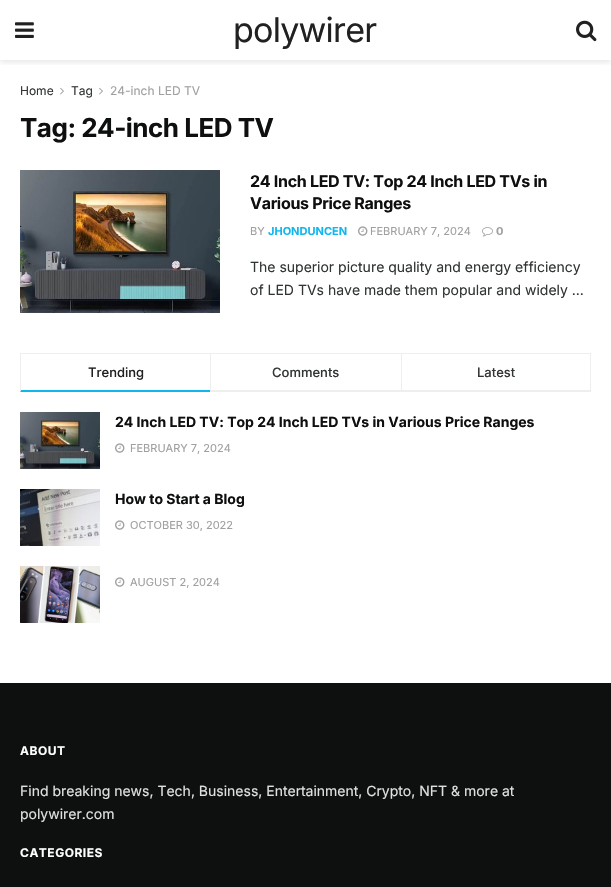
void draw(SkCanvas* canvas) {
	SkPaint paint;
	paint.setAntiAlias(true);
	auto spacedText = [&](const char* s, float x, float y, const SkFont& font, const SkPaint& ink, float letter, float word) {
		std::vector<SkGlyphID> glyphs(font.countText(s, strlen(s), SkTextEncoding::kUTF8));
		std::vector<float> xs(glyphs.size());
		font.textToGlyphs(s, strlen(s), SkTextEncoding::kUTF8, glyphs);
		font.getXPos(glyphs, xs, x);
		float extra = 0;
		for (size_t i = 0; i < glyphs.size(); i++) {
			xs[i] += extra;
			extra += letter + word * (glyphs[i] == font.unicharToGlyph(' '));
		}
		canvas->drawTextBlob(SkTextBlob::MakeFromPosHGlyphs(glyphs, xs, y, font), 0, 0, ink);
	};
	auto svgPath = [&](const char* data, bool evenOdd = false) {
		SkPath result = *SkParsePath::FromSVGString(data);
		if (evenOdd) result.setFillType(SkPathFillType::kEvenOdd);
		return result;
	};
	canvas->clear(0xffffffff);
	canvas->save();
	canvas->clipRect(SkRect::MakeXYWH(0, 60, 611, 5));
	paint.setColor(0x1a000000);
	paint.setMaskFilter(SkMaskFilter::MakeBlur(kNormal_SkBlurStyle, 3));
	canvas->drawRect(SkRect::MakeXYWH(0, 2, 611, 60), paint);
	paint.setMaskFilter(nullptr);
	canvas->restore();
	canvas->drawImageRect(SkImages::DeferredFromEncodedData(SkData::MakeFromFileName("img1.png")), SkRect::MakeXYWH(15, 22, 19, 16), SkSamplingOptions());
	SkFont f1(fontMgr->matchFamilyStyle("Inter", SkFontStyle::Normal()), 34);
	f1.setSubpixel(true);
	paint.setColor(0xff212121);
	spacedText("polywirer", 233, 42, f1, paint, -0.75, 0);
	canvas->drawImageRect(SkImages::DeferredFromEncodedData(SkData::MakeFromFileName("img2.png")), SkRect::MakeXYWH(576, 20, 21, 22), SkSamplingOptions());
	SkFont f2(fontMgr->matchFamilyStyle("Inter", SkFontStyle::Normal()), 12);
	f2.setSubpixel(true);
	paint.setColor(0xff313535);
	canvas->drawString("Home", 20, 95, f2, paint);
	canvas->drawImageRect(SkImages::DeferredFromEncodedData(SkData::MakeFromFileName("img3.png")), SkRect::MakeXYWH(60, 87, 4, 8), SkSamplingOptions());
	canvas->drawString("Tag", 71, 95, f2, paint);
	canvas->drawImageRect(SkImages::DeferredFromEncodedData(SkData::MakeFromFileName("img3.png")), SkRect::MakeXYWH(99, 87, 4, 8), SkSamplingOptions());
	paint.setColor(0xffa0a0a0);
	canvas->drawString("24-inch LED TV", 110, 95, f2, paint);
	SkFont f3(fontMgr->matchFamilyStyle("Inter", SkFontStyle::Bold()), 26);
	f3.setSubpixel(true);
	paint.setColor(0xff0e0f0f);
	spacedText("Tag: 24-inch LED TV", 20, 137, f3, paint, -0.5, 0);
	canvas->drawImageRect(SkImages::DeferredFromEncodedData(SkData::MakeFromFileName("img4.png")), SkRect::MakeXYWH(20, 170, 200, 143), SkSamplingOptions());
	SkFont f4(fontMgr->matchFamilyStyle("Inter", SkFontStyle::Bold()), 16);
	f4.setSubpixel(true);
	spacedText("24 Inch LED TV: Top 24 Inch LED TVs in", 250, 187, f4, paint, -0.3, 0);
	spacedText("Various Price Ranges", 250, 209, f4, paint, -0.3, 0);
	SkFont f5(fontMgr->matchFamilyStyle("Inter", SkFontStyle::Normal()), 11);
	f5.setSubpixel(true);
	paint.setColor(0xffa0a0a0);
	canvas->drawString("BY", 250, 235, f5, paint);
	SkFont f6(fontMgr->matchFamilyStyle("Inter", SkFontStyle::Bold()), 11);
	f6.setSubpixel(true);
	paint.setColor(0xff0fb7ee);
	canvas->drawString("JHONDUNCEN", 268, 235, f6, paint);
	canvas->drawImageRect(SkImages::DeferredFromEncodedData(SkData::MakeFromFileName("img5.png")), SkRect::MakeXYWH(358, 226, 10, 10), SkSamplingOptions());
	paint.setColor(0xffa0a0a0);
	canvas->drawString("FEBRUARY 7, 2024", 370, 235, f5, paint);
	canvas->drawImageRect(SkImages::DeferredFromEncodedData(SkData::MakeFromFileName("img6.png")), SkRect::MakeXYWH(482, 227, 11, 10), SkSamplingOptions());
	canvas->drawString("0", 496, 235, f6, paint);
	SkFont f7(fontMgr->matchFamilyStyle("Inter", SkFontStyle::Normal()), 14);
	f7.setSubpixel(true);
	paint.setColor(0xff313535);
	canvas->drawString("The superior picture quality and energy efficiency", 250, 272, f7, paint);
	canvas->drawString("of LED TVs have made them popular and widely ...", 250, 295, f7, paint);
	paint.setColor(0xffeeeeee);
	canvas->drawRect(SkRect::MakeXYWH(20, 353, 571, 1), paint);
	paint.setColor(0xff0fb7ee);
	canvas->drawPath(svgPath("M210 392H20L21 390H210Z"), paint);
	paint.setColor(0xffeeeeee);
	canvas->drawPath(svgPath("M20 392V353L21 354V390Z"), paint);
	SkFont f8(fontMgr->matchFamilyStyle("Inter", SkFontStyle(500, SkFontStyle::kNormal_Width, SkFontStyle::kUpright_Slant)), 13);
	f8.setSubpixel(true);
	paint.setColor(0xff212121);
	canvas->drawString("Trending", 88, 377, f8, paint);
	paint.setColor(0xffeeeeee);
	canvas->drawRect(SkRect::MakeXYWH(210, 390, 191, 2), paint);
	canvas->drawRect(SkRect::MakeXYWH(210, 353, 1, 39), paint);
	paint.setColor(0xff313535);
	canvas->drawString("Comments", 272, 377, f8, paint);
	paint.setColor(0xffeeeeee);
	canvas->drawRect(SkRect::MakeXYWH(590, 353, 1, 39), paint);
	canvas->drawRect(SkRect::MakeXYWH(401, 390, 190, 2), paint);
	canvas->drawRect(SkRect::MakeXYWH(401, 353, 1, 39), paint);
	paint.setColor(0xff313535);
	canvas->drawString("Latest", 477, 377, f8, paint);
	canvas->drawImageRect(SkImages::DeferredFromEncodedData(SkData::MakeFromFileName("img7.png")), SkRect::MakeXYWH(20, 412, 80, 57), SkSamplingOptions());
	SkFont f9(fontMgr->matchFamilyStyle("Inter", SkFontStyle::Bold()), 14);
	f9.setSubpixel(true);
	paint.setColor(0xff0e0f0f);
	canvas->drawString("24 Inch LED TV: Top 24 Inch LED TVs in Various Price Ranges", 115, 427, f9, paint);
	canvas->drawImageRect(SkImages::DeferredFromEncodedData(SkData::MakeFromFileName("img5.png")), SkRect::MakeXYWH(115, 443, 10, 10), SkSamplingOptions());
	paint.setColor(0xffa0a0a0);
	canvas->drawString("FEBRUARY 7, 2024", 130, 452, f5, paint);
	canvas->drawImageRect(SkImages::DeferredFromEncodedData(SkData::MakeFromFileName("img8.png")), SkRect::MakeXYWH(20, 489, 80, 57), SkSamplingOptions());
	paint.setColor(0xff0e0f0f);
	canvas->drawString("How to Start a Blog", 115, 504, f9, paint);
	canvas->drawImageRect(SkImages::DeferredFromEncodedData(SkData::MakeFromFileName("img5.png")), SkRect::MakeXYWH(115, 520, 10, 10), SkSamplingOptions());
	paint.setColor(0xffa0a0a0);
	canvas->drawString("OCTOBER 30, 2022", 130, 529, f5, paint);
	canvas->drawImageRect(SkImages::DeferredFromEncodedData(SkData::MakeFromFileName("img9.png")), SkRect::MakeXYWH(20, 566, 80, 57), SkSamplingOptions());
	canvas->drawImageRect(SkImages::DeferredFromEncodedData(SkData::MakeFromFileName("img5.png")), SkRect::MakeXYWH(115, 577, 10, 10), SkSamplingOptions());
	canvas->drawString("AUGUST 2, 2024", 130, 586, f5, paint);
	paint.setColor(0xff0e0f0f);
	canvas->drawRect(SkRect::MakeXYWH(0, 683, 611, 204), paint);
	SkFont f10(fontMgr->matchFamilyStyle("Inter", SkFontStyle::Bold()), 12);
	f10.setSubpixel(true);
	paint.setColor(0xffffffff);
	spacedText("ABOUT", 20, 755, f10, paint, 0.5, 0);
	paint.setColor(0xffdfe1e1);
	canvas->drawString("Find breaking news, Tech, Business, Entertainment, Crypto, NFT & more at", 20, 796, f7, paint);
	canvas->drawString("polywirer.com", 20, 819, f7, paint);
	paint.setColor(0xffffffff);
	spacedText("CATEGORIES", 20, 857, f10, paint, 0.5, 0);
}
